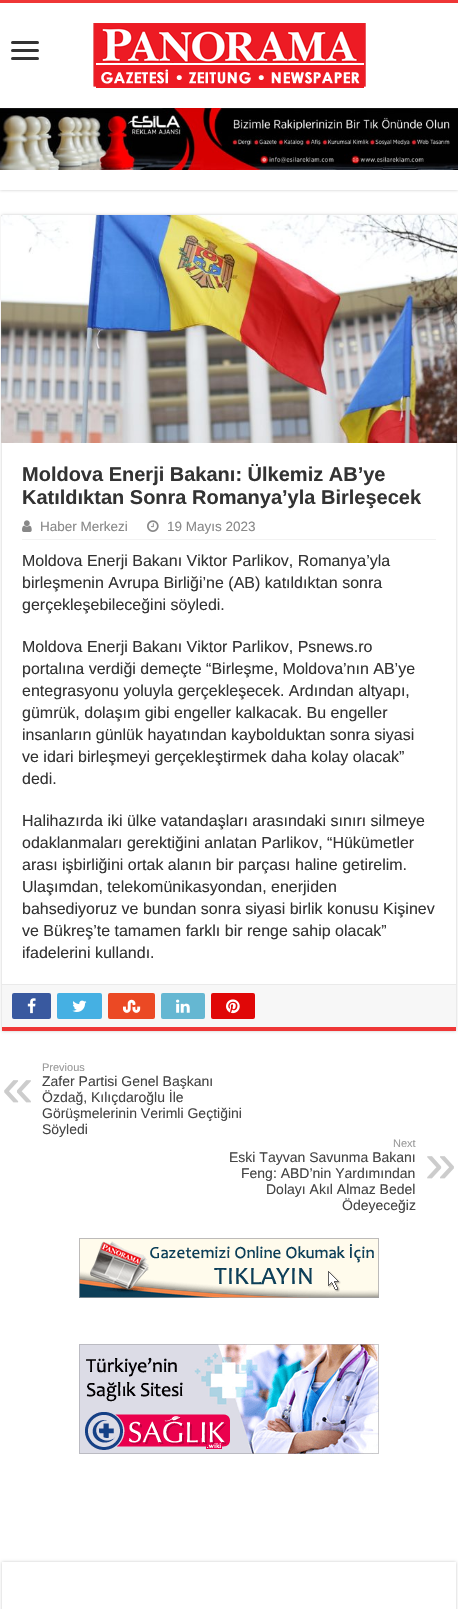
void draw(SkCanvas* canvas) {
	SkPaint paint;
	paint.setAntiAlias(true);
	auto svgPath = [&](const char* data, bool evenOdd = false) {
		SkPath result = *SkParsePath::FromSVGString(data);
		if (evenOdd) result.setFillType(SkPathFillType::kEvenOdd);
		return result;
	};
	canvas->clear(0xffffffff);
	canvas->save();
	canvas->clipRect(SkRect::MakeXYWH(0, 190, 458, 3));
	paint.setColor(0xffcacaca);
	paint.setMaskFilter(SkMaskFilter::MakeBlur(kNormal_SkBlurStyle, 1.5));
	canvas->drawRect(SkRect::MakeXYWH(0, 0, 458, 190), paint);
	paint.setMaskFilter(nullptr);
	canvas->restore();
	paint.setColor(0xffef3636);
	canvas->drawRect(SkRect::MakeXYWH(0, 0, 458, 3), paint);
	paint.setColor(0xff333333);
	canvas->drawRoundRect(SkRect::MakeXYWH(11, 41, 28, 3), 1.5, 1.5, paint);
	canvas->drawRoundRect(SkRect::MakeXYWH(11, 49, 28, 3), 1.5, 1.5, paint);
	canvas->drawRoundRect(SkRect::MakeXYWH(11, 57, 28, 3), 1.5, 1.5, paint);
	canvas->drawImageRect(SkImages::DeferredFromEncodedData(SkData::MakeFromFileName("img1.png")), SkRect::MakeXYWH(93, 23, 273, 65), SkSamplingOptions());
	canvas->drawImageRect(SkImages::DeferredFromEncodedData(SkData::MakeFromFileName("img2.png")), SkRect::MakeXYWH(0, 108, 458, 62), SkSamplingOptions());
	canvas->save();
	canvas->clipPath(svgPath("M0 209H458V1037H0ZM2 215H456V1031H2Z", true), true);
	paint.setColor(0xffcacaca);
	paint.setMaskFilter(SkMaskFilter::MakeBlur(kNormal_SkBlurStyle, 1.5));
	canvas->drawRect(SkRect::MakeXYWH(2, 215, 454, 816), paint);
	paint.setMaskFilter(nullptr);
	canvas->restore();
	paint.setColor(0xffef3636);
	canvas->drawRect(SkRect::MakeXYWH(2, 1027, 454, 4), paint);
	canvas->drawImageRect(SkImages::DeferredFromEncodedData(SkData::MakeFromFileName("img3.png")), SkRect::MakeXYWH(1, 215, 456, 228), SkSamplingOptions());
	SkFont f1(fontMgr->matchFamilyStyle("Liberation Sans", SkFontStyle::Bold()), 20);
	f1.setSubpixel(true);
	paint.setColor(0xff333333);
	canvas->drawString("Moldova Enerji Bakanı: Ülkemiz AB’ye", 22, 481, f1, paint);
	canvas->drawString("Katıldıktan Sonra Romanya’yla Birleşecek", 22, 504, f1, paint);
	paint.setColor(0xfff2f2f2);
	canvas->drawRect(SkRect::MakeXYWH(22, 539, 414, 1), paint);
	canvas->drawImageRect(SkImages::DeferredFromEncodedData(SkData::MakeFromFileName("img4.png")), SkRect::MakeXYWH(22, 520, 10, 12), SkSamplingOptions());
	SkFont f2(fontMgr->matchFamilyStyle("Liberation Sans", SkFontStyle::Normal()), 13.5);
	f2.setSubpixel(true);
	paint.setColor(0xff888888);
	canvas->drawString("Haber Merkezi", 40, 531, f2, paint);
	canvas->drawImageRect(SkImages::DeferredFromEncodedData(SkData::MakeFromFileName("img5.png")), SkRect::MakeXYWH(147, 520, 12, 12), SkSamplingOptions());
	canvas->drawString("19 Mayıs 2023", 167, 531, f2, paint);
	SkFont f3(fontMgr->matchFamilyStyle("Liberation Sans", SkFontStyle::Normal()), 16);
	f3.setSubpixel(true);
	paint.setColor(0xff333333);
	canvas->drawString("Moldova Enerji Bakanı Viktor Parlikov, Romanya’yla", 22, 566, f3, paint);
	canvas->drawString("birleşmenin Avrupa Birliği’ne (AB) katıldıktan sonra", 22, 588, f3, paint);
	canvas->drawString("gerçekleşebileceğini söyledi.", 22, 610, f3, paint);
	canvas->drawString("Moldova Enerji Bakanı Viktor Parlikov, Psnews.ro", 22, 652, f3, paint);
	canvas->drawString("portalına verdiği demeçte “Birleşme, Moldova’nın AB’ye", 22, 674, f3, paint);
	canvas->drawString("entegrasyonu yoluyla gerçekleşecek. Ardından altyapı,", 22, 696, f3, paint);
	canvas->drawString("gümrük, dolaşım gibi engeller kalkacak. Bu engeller", 22, 718, f3, paint);
	canvas->drawString("insanların günlük hayatından kaybolduktan sonra siyasi", 22, 740, f3, paint);
	canvas->drawString("ve idari birleşmeyi gerçekleştirmek daha kolay olacak”", 22, 762, f3, paint);
	canvas->drawString("dedi.", 22, 784, f3, paint);
	canvas->drawString("Halihazırda iki ülke vatandaşları arasındaki sınırı silmeye", 22, 826, f3, paint);
	canvas->drawString("odaklanmaları gerektiğini anlatan Parlikov, “Hükümetler", 22, 848, f3, paint);
	canvas->drawString("arası işbirliğini ortak alanın bir parçası haline getirelim.", 22, 870, f3, paint);
	canvas->drawString("Ulaşımdan, telekomünikasyondan, enerjiden", 22, 892, f3, paint);
	canvas->drawString("bahsediyoruz ve bundan sonra siyasi birlik konusu Kişinev", 22, 914, f3, paint);
	canvas->drawString("ve Bükreş’te tamamen farklı bir renge sahip olacak”", 22, 936, f3, paint);
	canvas->drawString("ifadelerini kullandı.", 22, 958, f3, paint);
	paint.setColor(0xfff7f7f7);
	canvas->drawRect(SkRect::MakeXYWH(2, 985, 454, 42), paint);
	paint.setColor(0xffeaeaea);
	canvas->drawRect(SkRect::MakeXYWH(2, 984, 454, 1), paint);
	paint.setColor(0xff39599f);
	canvas->drawRoundRect(SkRect::MakeXYWH(12, 993, 39, 26), 2, 2, paint);
	canvas->drawImageRect(SkImages::DeferredFromEncodedData(SkData::MakeFromFileName("img6.png")), SkRect::MakeXYWH(27, 998, 9, 16), SkSamplingOptions());
	paint.setColor(0xff45b0e3);
	canvas->drawRoundRect(SkRect::MakeXYWH(57, 993, 45, 26), 2, 2, paint);
	canvas->drawImageRect(SkImages::DeferredFromEncodedData(SkData::MakeFromFileName("img7.png")), SkRect::MakeXYWH(72, 1000, 15, 12), SkSamplingOptions());
	paint.setColor(0xffeb4924);
	canvas->drawRoundRect(SkRect::MakeXYWH(108, 993, 47, 26), 2, 2, paint);
	canvas->drawImageRect(SkImages::DeferredFromEncodedData(SkData::MakeFromFileName("img8.png")), SkRect::MakeXYWH(123, 999, 18, 14), SkSamplingOptions());
	paint.setColor(0xff65b7d2);
	canvas->drawRoundRect(SkRect::MakeXYWH(161, 993, 44, 26), 2, 2, paint);
	canvas->drawImageRect(SkImages::DeferredFromEncodedData(SkData::MakeFromFileName("img9.png")), SkRect::MakeXYWH(176, 999, 14, 14), SkSamplingOptions());
	paint.setColor(0xffe00707);
	canvas->drawRoundRect(SkRect::MakeXYWH(211, 993, 44, 26), 2, 2, paint);
	canvas->drawImageRect(SkImages::DeferredFromEncodedData(SkData::MakeFromFileName("img10.png")), SkRect::MakeXYWH(226, 999, 14, 15), SkSamplingOptions());
	SkFont f4(fontMgr->matchFamilyStyle("Liberation Sans", SkFontStyle::Normal()), 11);
	f4.setSubpixel(true);
	paint.setColor(0xff999999);
	canvas->drawString("Previous", 42, 1071, f4, paint);
	SkFont f5(fontMgr->matchFamilyStyle("Liberation Sans", SkFontStyle::Normal()), 56);
	f5.setSubpixel(true);
	paint.setColor(0xffcccccc);
	canvas->drawString("«", 2, 1106, f5, paint);
	SkFont f6(fontMgr->matchFamilyStyle("Liberation Sans", SkFontStyle::Normal()), 14);
	f6.setSubpixel(true);
	paint.setColor(0xff444444);
	canvas->drawString("Zafer Partisi Genel Başkanı", 42, 1086, f6, paint);
	canvas->drawString("Özdağ, Kılıçdaroğlu İle", 42, 1102, f6, paint);
	canvas->drawString("Görüşmelerinin Verimli Geçtiğini", 42, 1118, f6, paint);
	canvas->drawString("Söyledi", 42, 1134, f6, paint);
	paint.setColor(0xff999999);
	canvas->drawString("Next", 393, 1147, f4, paint);
	paint.setColor(0xff444444);
	canvas->drawString("Eski Tayvan Savunma Bakanı", 229, 1162, f6, paint);
	paint.setColor(0xffcccccc);
	canvas->drawString("»", 425, 1182, f5, paint);
	paint.setColor(0xff444444);
	canvas->drawString("Feng: ABD’nin Yardımından", 241, 1178, f6, paint);
	canvas->drawString("Dolayı Akıl Almaz Bedel", 266, 1194, f6, paint);
	canvas->drawString("Ödeyeceğiz", 342, 1210, f6, paint);
	canvas->drawImageRect(SkImages::DeferredFromEncodedData(SkData::MakeFromFileName("img11.png")), SkRect::MakeXYWH(79, 1238, 300, 60), SkSamplingOptions());
	canvas->drawImageRect(SkImages::DeferredFromEncodedData(SkData::MakeFromFileName("img12.png")), SkRect::MakeXYWH(79, 1344, 300, 110), SkSamplingOptions());
	canvas->save();
	canvas->clipPath(svgPath("M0 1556H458V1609H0ZM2 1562H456V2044H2Z", true), true);
	paint.setColor(0xffcacaca);
	paint.setMaskFilter(SkMaskFilter::MakeBlur(kNormal_SkBlurStyle, 1.5));
	canvas->drawRect(SkRect::MakeXYWH(2, 1562, 454, 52), paint);
	paint.setMaskFilter(nullptr);
	canvas->restore();
}
